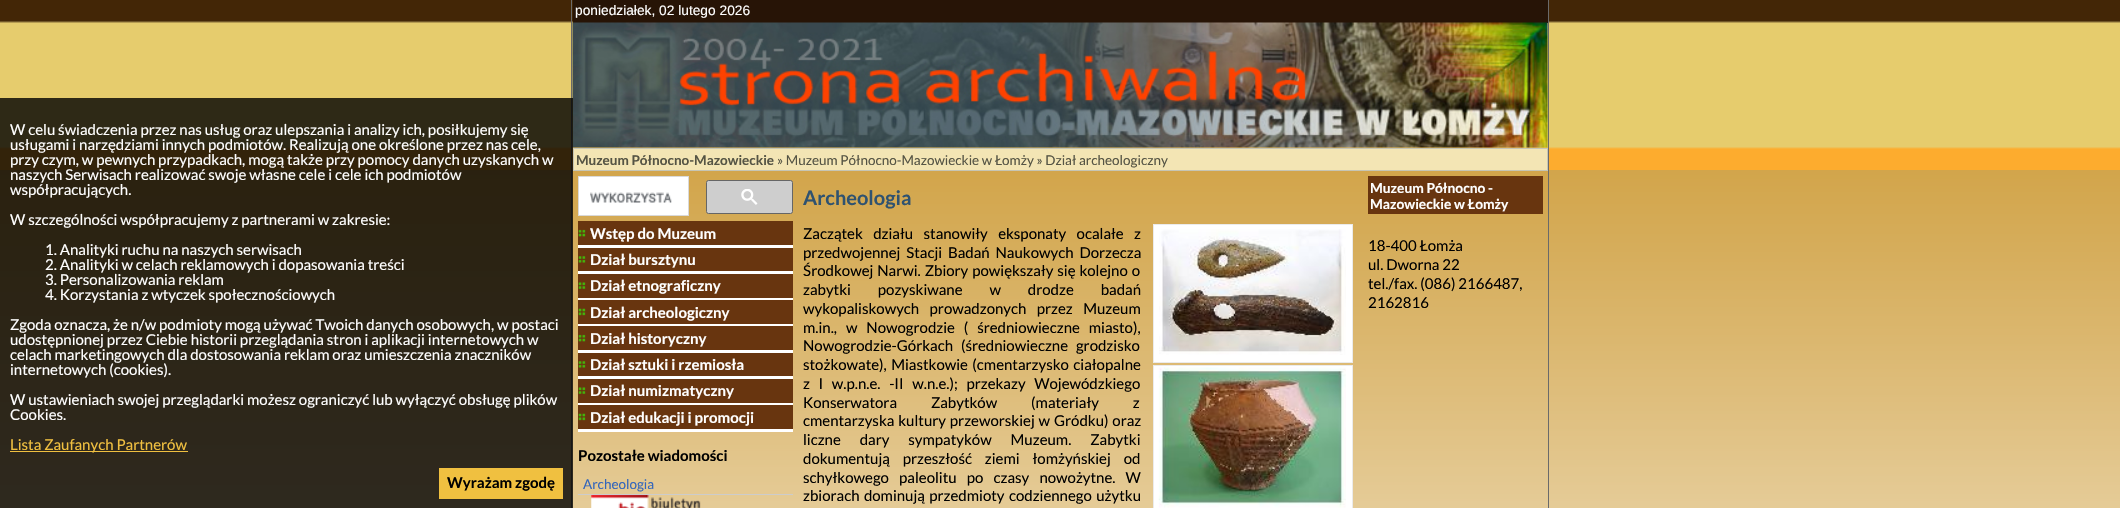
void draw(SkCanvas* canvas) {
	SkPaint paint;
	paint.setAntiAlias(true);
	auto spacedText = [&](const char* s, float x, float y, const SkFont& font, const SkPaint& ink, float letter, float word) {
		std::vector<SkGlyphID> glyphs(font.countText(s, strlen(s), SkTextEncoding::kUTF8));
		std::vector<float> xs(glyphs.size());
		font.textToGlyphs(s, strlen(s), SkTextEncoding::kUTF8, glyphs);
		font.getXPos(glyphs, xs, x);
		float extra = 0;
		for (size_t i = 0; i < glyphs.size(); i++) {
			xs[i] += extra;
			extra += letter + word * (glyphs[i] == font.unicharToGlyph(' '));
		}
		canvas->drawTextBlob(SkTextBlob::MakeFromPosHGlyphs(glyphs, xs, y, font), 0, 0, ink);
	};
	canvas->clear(0xffffffff);
	canvas->drawImageRect(SkImages::DeferredFromEncodedData(SkData::MakeFromFileName("img1.png")), SkRect::MakeXYWH(0, 170, 2120, 338), SkSamplingOptions());
	canvas->drawImageRect(SkImages::DeferredFromEncodedData(SkData::MakeFromFileName("img2.png")), SkRect::MakeXYWH(0, 0, 2120, 170), SkSamplingOptions());
	paint.setColor(0xff6a6a6a);
	canvas->drawRect(SkRect::MakeXYWH(571, 0, 1, 508), paint);
	paint.setColor(0xff271406);
	canvas->drawRect(SkRect::MakeXYWH(573, 0, 975, 23), paint);
	canvas->drawImageRect(SkImages::DeferredFromEncodedData(SkData::MakeFromFileName("img3.png")), SkRect::MakeXYWH(572, 22, 976, 126), SkSamplingOptions());
	paint.setColor(0xcc000000);
	canvas->drawRect(SkRect::MakeXYWH(0, 98, 573, 410), paint);
	SkFont f1(fontMgr->matchFamilyStyle("Lato", SkFontStyle::Normal()), 15);
	f1.setSubpixel(true);
	paint.setColor(0xffffffff);
	canvas->drawString("W celu świadczenia przez nas usług oraz ulepszania i analizy ich, posiłkujemy się", 10, 135, f1, paint);
	canvas->drawString("usługami i narzędziami innych podmiotów. Realizują one określone przez nas cele,", 10, 150, f1, paint);
	canvas->drawString("przy czym, w pewnych przypadkach, mogą także przy pomocy danych uzyskanych w", 10, 165, f1, paint);
	canvas->drawString("naszych Serwisach realizować swoje własne cele i cele ich podmiotów", 10, 180, f1, paint);
	canvas->drawString("współpracujących.", 10, 195, f1, paint);
	canvas->drawString("W szczególności współpracujemy z partnerami w zakresie:", 10, 225, f1, paint);
	canvas->drawString("1. Analityki ruchu na naszych serwisach", 45, 255, f1, paint);
	canvas->drawString("2. Analityki w celach reklamowych i dopasowania treści", 45, 270, f1, paint);
	canvas->drawString("3. Personalizowania reklam", 45, 285, f1, paint);
	canvas->drawString("4. Korzystania z wtyczek społecznościowych", 45, 300, f1, paint);
	canvas->drawString("Zgoda oznacza, że n/w podmioty mogą używać Twoich danych osobowych, w postaci", 10, 330, f1, paint);
	canvas->drawString("udostępnionej przez Ciebie historii przeglądania stron i aplikacji internetowych w", 10, 345, f1, paint);
	canvas->drawString("celach marketingowych dla dostosowania reklam oraz umieszczenia znaczników", 10, 360, f1, paint);
	canvas->drawString("internetowych (cookies).", 10, 375, f1, paint);
	canvas->drawString("W ustawieniach swojej przeglądarki możesz ograniczyć lub wyłączyć obsługę plików", 10, 405, f1, paint);
	canvas->drawString("Cookies.", 10, 420, f1, paint);
	paint.setColor(0xfff0c040);
	canvas->drawRect(SkRect::MakeXYWH(10, 451, 178, 1), paint);
	canvas->drawString("Lista Zaufanych Partnerów", 10, 450, f1, paint);
	canvas->drawRect(SkRect::MakeXYWH(439, 468, 124, 31), paint);
	SkFont f2(fontMgr->matchFamilyStyle("Lato", SkFontStyle::Bold()), 15);
	f2.setSubpixel(true);
	paint.setColor(0xff000000);
	canvas->drawString("Wyrażam zgodę", 447, 488, f2, paint);
	paint.setColor(0xff6a6a6a);
	canvas->drawRect(SkRect::MakeXYWH(1548, 0, 1, 508), paint);
	SkFont f3(fontMgr->matchFamilyStyle("Liberation Sans", SkFontStyle::Normal()), 13.75);
	f3.setSubpixel(true);
	paint.setColor(0xffffffff);
	canvas->drawString("poniedziałek, 02 lutego 2026", 575, 15, f3, paint);
	paint.setColor(0xfff3e5b4);
	canvas->drawRect(SkRect::MakeXYWH(573.5, 148.5, 974, 22), paint);
	paint.setStroke(true);
	paint.setStrokeWidth(1);
	paint.setColor(0xffc6c5b4);
	canvas->drawRect(SkRect::MakeXYWH(573.5, 148.5, 974, 22), paint);
	SkFont f4(fontMgr->matchFamilyStyle("Lato", SkFontStyle::Bold()), 13.5);
	f4.setSubpixel(true);
	paint.setStroke(false);
	paint.setColor(0xff555444);
	canvas->drawString("Muzeum Północno-Mazowieckie", 576, 165, f4, paint);
	SkFont f5(fontMgr->matchFamilyStyle("Lato", SkFontStyle::Normal()), 13.5);
	f5.setSubpixel(true);
	canvas->drawString("» Muzeum Północno-Mazowieckie w Łomży » Dział archeologiczny", 777, 165, f5, paint);
	paint.setColor(0xffffffff);
	canvas->drawRect(SkRect::MakeXYWH(578.5, 176.5, 110, 39), paint);
	paint.setStroke(true);
	paint.setColor(0xffd9d9d9);
	canvas->drawRect(SkRect::MakeXYWH(578.5, 176.5, 110, 39), paint);
	canvas->drawImageRect(SkImages::DeferredFromEncodedData(SkData::MakeFromFileName("img4.png")), SkRect::MakeXYWH(590, 192, 82, 11), SkSamplingOptions());
	paint.setStroke(false);
	paint.setColor(0xffcecece);
	canvas->drawRoundRect(SkRect::MakeXYWH(706.5, 180.5, 86, 33), 2, 2, paint);
	paint.setStroke(true);
	paint.setColor(0xff666666);
	canvas->drawRoundRect(SkRect::MakeXYWH(706.5, 180.5, 86, 33), 2, 2, paint);
	canvas->drawImageRect(SkImages::DeferredFromEncodedData(SkData::MakeFromFileName("img5.png")), SkRect::MakeXYWH(741, 189, 17, 16), SkSamplingOptions());
	paint.setStroke(false);
	paint.setColor(0xff68350f);
	canvas->drawRect(SkRect::MakeXYWH(578, 221, 215, 24), paint);
	canvas->drawImageRect(SkImages::DeferredFromEncodedData(SkData::MakeFromFileName("img6.png")), SkRect::MakeXYWH(578, 229, 8, 8), SkSamplingOptions());
	paint.setColor(0xffffffff);
	canvas->drawRect(SkRect::MakeXYWH(578, 245, 215, 3), paint);
	canvas->drawString("Wstęp do Muzeum", 590, 239, f2, paint);
	paint.setColor(0xff68350f);
	canvas->drawRect(SkRect::MakeXYWH(578, 248, 215, 23), paint);
	canvas->drawImageRect(SkImages::DeferredFromEncodedData(SkData::MakeFromFileName("img7.png")), SkRect::MakeXYWH(578, 256, 8, 7), SkSamplingOptions());
	paint.setColor(0xffffffff);
	canvas->drawRect(SkRect::MakeXYWH(578, 271, 215, 3), paint);
	canvas->drawString("Dział bursztynu", 590, 265, f2, paint);
	paint.setColor(0xff68350f);
	canvas->drawRect(SkRect::MakeXYWH(578, 274, 215, 24), paint);
	canvas->drawImageRect(SkImages::DeferredFromEncodedData(SkData::MakeFromFileName("img8.png")), SkRect::MakeXYWH(578, 282, 8, 7), SkSamplingOptions());
	paint.setColor(0xffffffff);
	canvas->drawRect(SkRect::MakeXYWH(578, 298, 215, 2), paint);
	canvas->drawString("Dział etnograficzny", 590, 291, f2, paint);
	paint.setColor(0xff68350f);
	canvas->drawRect(SkRect::MakeXYWH(578, 300, 215, 24), paint);
	canvas->drawImageRect(SkImages::DeferredFromEncodedData(SkData::MakeFromFileName("img9.png")), SkRect::MakeXYWH(578, 308, 8, 8), SkSamplingOptions());
	paint.setColor(0xffffffff);
	canvas->drawRect(SkRect::MakeXYWH(578, 324, 215, 2), paint);
	canvas->drawString("Dział archeologiczny", 590, 318, f2, paint);
	paint.setColor(0xff68350f);
	canvas->drawRect(SkRect::MakeXYWH(578, 326, 215, 24), paint);
	canvas->drawImageRect(SkImages::DeferredFromEncodedData(SkData::MakeFromFileName("img6.png")), SkRect::MakeXYWH(578, 334, 8, 8), SkSamplingOptions());
	paint.setColor(0xffffffff);
	canvas->drawRect(SkRect::MakeXYWH(578, 350, 215, 3), paint);
	canvas->drawString("Dział historyczny", 590, 344, f2, paint);
	paint.setColor(0xff68350f);
	canvas->drawRect(SkRect::MakeXYWH(578, 353, 215, 23), paint);
	canvas->drawImageRect(SkImages::DeferredFromEncodedData(SkData::MakeFromFileName("img7.png")), SkRect::MakeXYWH(578, 361, 8, 7), SkSamplingOptions());
	paint.setColor(0xffffffff);
	canvas->drawRect(SkRect::MakeXYWH(578, 376, 215, 3), paint);
	canvas->drawString("Dział sztuki i rzemiosła", 590, 370, f2, paint);
	paint.setColor(0xff68350f);
	canvas->drawRect(SkRect::MakeXYWH(578, 379, 215, 24), paint);
	canvas->drawImageRect(SkImages::DeferredFromEncodedData(SkData::MakeFromFileName("img8.png")), SkRect::MakeXYWH(578, 387, 8, 7), SkSamplingOptions());
	paint.setColor(0xffffffff);
	canvas->drawRect(SkRect::MakeXYWH(578, 403, 215, 2), paint);
	canvas->drawString("Dział numizmatyczny", 590, 396, f2, paint);
	paint.setColor(0xff68350f);
	canvas->drawRect(SkRect::MakeXYWH(578, 405, 215, 24), paint);
	canvas->drawImageRect(SkImages::DeferredFromEncodedData(SkData::MakeFromFileName("img9.png")), SkRect::MakeXYWH(578, 413, 8, 8), SkSamplingOptions());
	paint.setColor(0xffffffff);
	canvas->drawRect(SkRect::MakeXYWH(578, 429, 215, 3), paint);
	canvas->drawString("Dział edukacji i promocji", 590, 423, f2, paint);
	paint.setColor(0xff000000);
	canvas->drawString("Pozostałe wiadomości", 578, 461, f2, paint);
	paint.setColor(0xffcccccc);
	canvas->drawRect(SkRect::MakeXYWH(578, 494, 215, 1), paint);
	paint.setColor(0xff3366bb);
	canvas->drawString("Archeologia", 583, 489, f5, paint);
	canvas->drawImageRect(SkImages::DeferredFromEncodedData(SkData::MakeFromFileName("img10.png")), SkRect::MakeXYWH(591, 495, 110, 13), SkSamplingOptions());
	SkFont f6(fontMgr->matchFamilyStyle("Lato", SkFontStyle::Bold()), 20);
	f6.setSubpixel(true);
	paint.setColor(0xff2f5270);
	canvas->drawString("Archeologia", 803, 205, f6, paint);
	paint.setColor(0xff000000);
	spacedText("Zaczątek działu stanowiły eksponaty ocalałe z", 803, 239, f1, paint, 0, 7.5);
	spacedText("przedwojennej Stacji Badań Naukowych Dorzecza", 803, 258, f1, paint, 0, 3);
	spacedText("Środkowej Narwi. Zbiory powiększały się kolejno o", 803, 276, f1, paint, 0, 1);
	spacedText("zabytki pozyskiwane w drodze badań", 803, 295, f1, paint, 0, 24);
	spacedText("wykopaliskowych prowadzonych przez Muzeum", 803, 314, f1, paint, 0, 7.5);
	spacedText("m.in., w Nowogrodzie ( średniowieczne miasto),", 803, 333, f1, paint, 0, 6);
	spacedText("Nowogrodzie-Górkach (średniowieczne grodzisko", 803, 351, f1, paint, 0, 5);
	spacedText("stożkowate), Miastkowie (cmentarzysko ciałopalne", 803, 370, f1, paint, 0, 1.5);
	spacedText("z I w.p.n.e. -II w.n.e.); przekazy Wojewódzkiego", 803, 389, f1, paint, 0, 5.75);
	spacedText("Konserwatora Zabytków (materiały z", 803, 408, f1, paint, 0, 31);
	spacedText("cmentarzyska kultury przeworskiej w Gródku) oraz", 803, 426, f1, paint, 0, 1);
	spacedText("liczne dary sympatyków Muzeum. Zabytki", 803, 445, f1, paint, 0, 16);
	spacedText("dokumentują przeszłość ziemi łomżyńskiej od", 803, 464, f1, paint, 0, 10);
	spacedText("schyłkowego paleolitu po czasy nowożytne. W", 803, 483, f1, paint, 0, 7.25);
	spacedText("zbiorach dominują przedmioty codziennego użytku", 803, 501, f1, paint, 0, 1.5);
	paint.setColor(0xffffffff);
	canvas->drawRect(SkRect::MakeXYWH(1153.5, 224.5, 199, 138), paint);
	paint.setStroke(true);
	paint.setColor(0xffebebeb);
	canvas->drawRect(SkRect::MakeXYWH(1153.5, 224.5, 199, 138), paint);
	canvas->drawImageRect(SkImages::DeferredFromEncodedData(SkData::MakeFromFileName("img11.png")), SkRect::MakeXYWH(1159, 229, 187, 126), SkSamplingOptions());
	paint.setStroke(false);
	paint.setColor(0xffffffff);
	canvas->drawRect(SkRect::MakeXYWH(1153.5, 365.5, 199, 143), paint);
	paint.setStroke(true);
	paint.setColor(0xffebebeb);
	canvas->drawRect(SkRect::MakeXYWH(1153.5, 365.5, 199, 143), paint);
	canvas->drawImageRect(SkImages::DeferredFromEncodedData(SkData::MakeFromFileName("img12.png")), SkRect::MakeXYWH(1158, 367, 188, 141), SkSamplingOptions());
	paint.setStroke(false);
	paint.setColor(0xff68350f);
	canvas->drawRect(SkRect::MakeXYWH(1368, 176, 175, 38), paint);
	SkFont f7(fontMgr->matchFamilyStyle("Lato", SkFontStyle::Bold()), 13.75);
	f7.setSubpixel(true);
	paint.setColor(0xffffffff);
	canvas->drawString("Muzeum Północno -", 1370, 193, f7, paint);
	canvas->drawString("Mazowieckie w Łomży", 1370, 209, f7, paint);
	paint.setColor(0xff000000);
	canvas->drawString("18-400 Łomża", 1368, 251, f1, paint);
	canvas->drawString("ul. Dworna 22", 1368, 270, f1, paint);
	canvas->drawString("tel./fax. (086) 2166487,", 1368, 289, f1, paint);
	canvas->drawString("2162816", 1368, 308, f1, paint);
}
